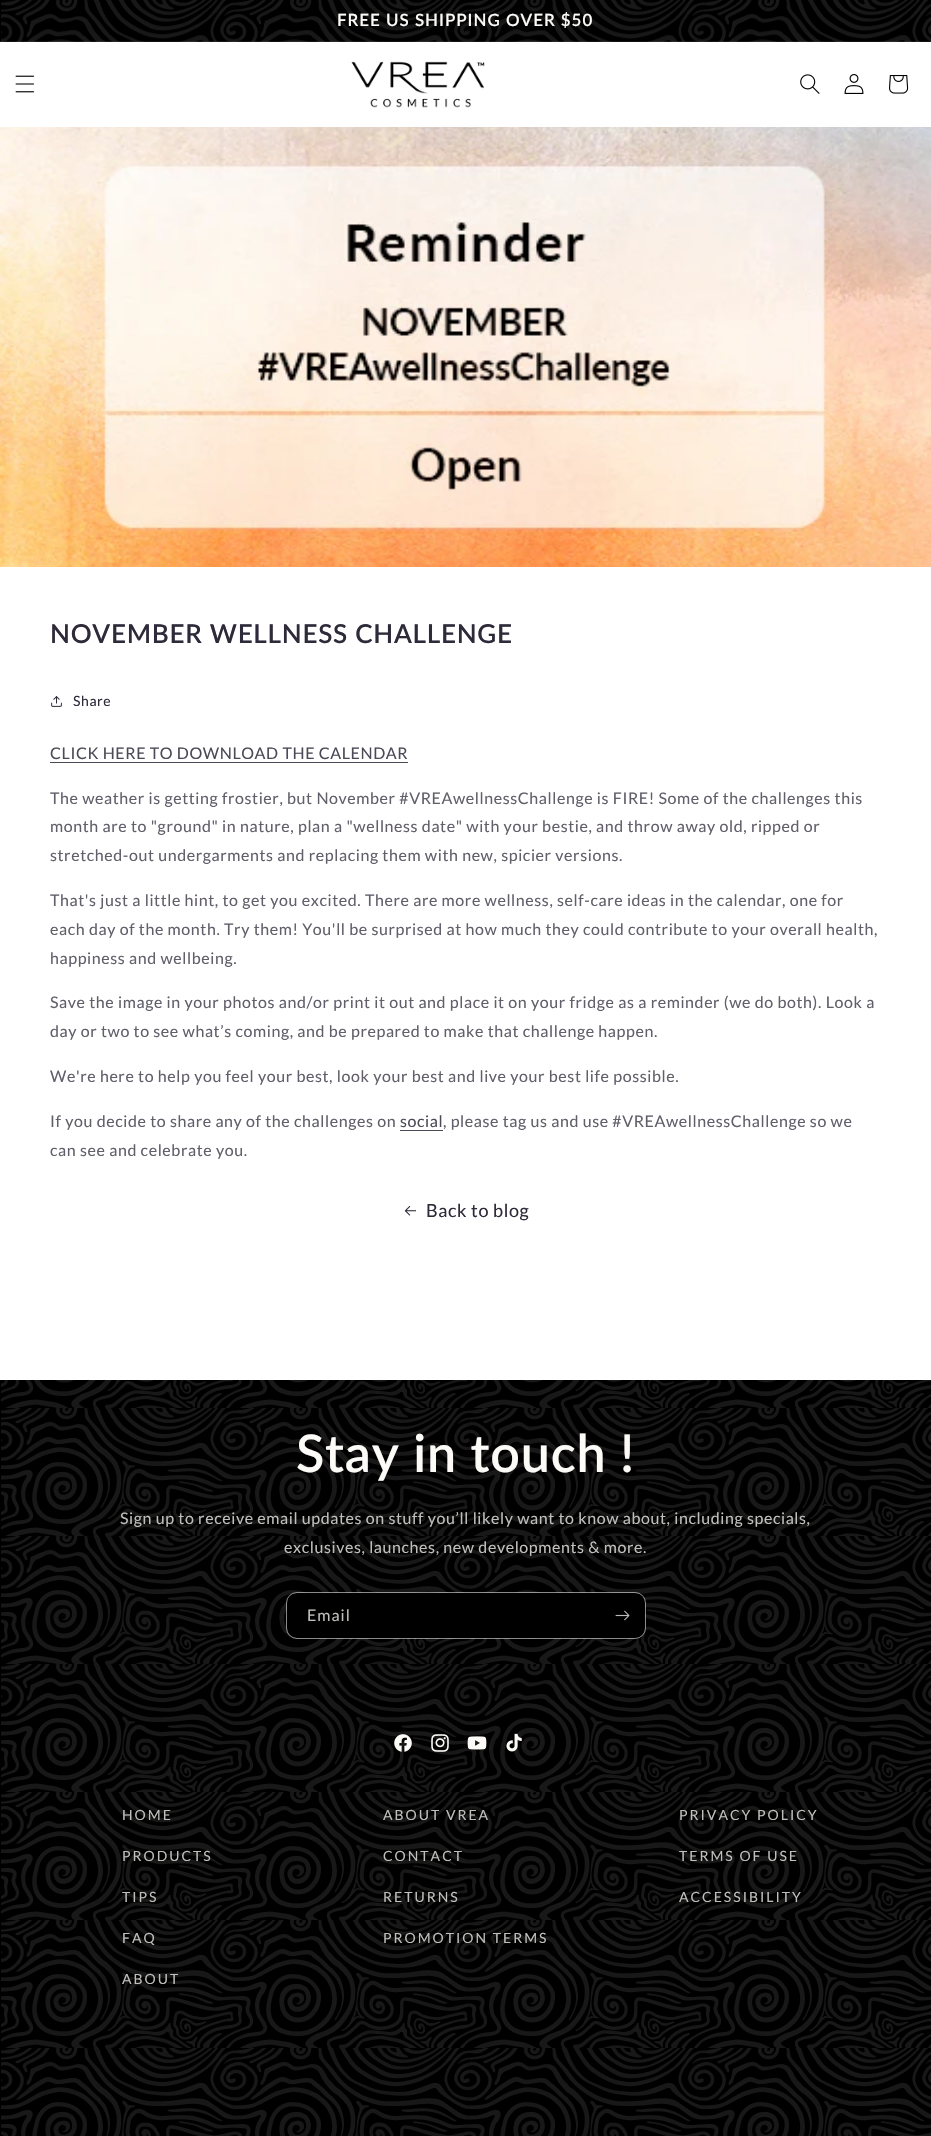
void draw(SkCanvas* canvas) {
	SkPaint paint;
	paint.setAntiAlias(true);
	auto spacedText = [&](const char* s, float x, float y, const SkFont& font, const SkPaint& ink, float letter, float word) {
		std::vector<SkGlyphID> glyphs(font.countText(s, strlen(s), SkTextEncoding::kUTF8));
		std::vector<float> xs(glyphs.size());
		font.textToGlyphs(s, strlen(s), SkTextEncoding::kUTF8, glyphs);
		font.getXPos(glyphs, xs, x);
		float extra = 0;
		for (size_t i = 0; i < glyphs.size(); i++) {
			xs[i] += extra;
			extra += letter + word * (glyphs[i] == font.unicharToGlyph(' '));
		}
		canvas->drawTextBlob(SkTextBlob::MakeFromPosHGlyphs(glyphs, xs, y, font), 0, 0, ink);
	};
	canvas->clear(0xffffffff);
	paint.setColor(0xff000000);
	canvas->drawRect(SkRect::MakeXYWH(0, 0, 931, 42), paint);
	canvas->drawImageRect(SkImages::DeferredFromEncodedData(SkData::MakeFromFileName("img1.png")), SkRect::MakeXYWH(1, 0, 930, 42), SkSamplingOptions());
	paint.setColor(0x14fdfbf7);
	canvas->drawRect(SkRect::MakeXYWH(0, 41, 931, 1), paint);
	SkFont f1(fontMgr->matchFamilyStyle("Lato", SkFontStyle(600, SkFontStyle::kNormal_Width, SkFontStyle::kUpright_Slant)), 16.9);
	f1.setSubpixel(true);
	paint.setColor(0xfffdfbf7);
	spacedText("FREE US SHIPPING OVER $50", 337, 26, f1, paint, 1, 0);
	canvas->drawImageRect(SkImages::DeferredFromEncodedData(SkData::MakeFromFileName("img2.png")), SkRect::MakeXYWH(15, 75, 20, 18), SkSamplingOptions());
	canvas->drawImageRect(SkImages::DeferredFromEncodedData(SkData::MakeFromFileName("img3.png")), SkRect::MakeXYWH(351, 61, 134, 47), SkSamplingOptions());
	canvas->drawImageRect(SkImages::DeferredFromEncodedData(SkData::MakeFromFileName("img4.png")), SkRect::MakeXYWH(800, 74, 20, 20), SkSamplingOptions());
	canvas->drawImageRect(SkImages::DeferredFromEncodedData(SkData::MakeFromFileName("img5.png")), SkRect::MakeXYWH(844, 74, 20, 20), SkSamplingOptions());
	canvas->drawImageRect(SkImages::DeferredFromEncodedData(SkData::MakeFromFileName("img6.png")), SkRect::MakeXYWH(889, 75, 20, 19), SkSamplingOptions());
	canvas->drawImageRect(SkImages::DeferredFromEncodedData(SkData::MakeFromFileName("img7.png")), SkRect::MakeXYWH(0, 127, 931, 440), SkSamplingOptions());
	SkFont f2(fontMgr->matchFamilyStyle("Lato", SkFontStyle(600, SkFontStyle::kNormal_Width, SkFontStyle::kUpright_Slant)), 26);
	f2.setSubpixel(true);
	paint.setColor(0xff2e2a39);
	spacedText("NOVEMBER WELLNESS CHALLENGE", 50, 643, f2, paint, 0.75, 0);
	canvas->drawImageRect(SkImages::DeferredFromEncodedData(SkData::MakeFromFileName("img8.png")), SkRect::MakeXYWH(51, 696, 11, 11), SkSamplingOptions());
	SkFont f3(fontMgr->matchFamilyStyle("Lato", SkFontStyle::Normal()), 14);
	f3.setSubpixel(true);
	spacedText("Share", 73, 706, f3, paint, 0.6, 0);
	SkFont f4(fontMgr->matchFamilyStyle("Lato", SkFontStyle::Normal()), 16);
	f4.setSubpixel(true);
	paint.setColor(0xff4d4a57);
	spacedText("CLICK HERE TO DOWNLOAD THE CALENDAR", 50, 759, f4, paint, 0.6, 0);
	canvas->drawRect(SkRect::MakeXYWH(50, 762, 358, 1), paint);
	paint.setColor(0xff625f6b);
	spacedText("The weather is getting frostier, but November #VREAwellnessChallenge is FIRE! Some of the challenges this", 50, 804, f4, paint, 0.6, 0);
	spacedText("month are to \"ground\" in nature, plan a \"wellness date\" with your bestie, and throw away old, ripped or", 50, 832, f4, paint, 0.6, 0);
	spacedText("stretched-out undergarments and replacing them with new, spicier versions.", 50, 861, f4, paint, 0.6, 0);
	spacedText("That's just a little hint, to get you excited. There are more wellness, self-care ideas in the calendar, one for", 50, 906, f4, paint, 0.6, 0);
	spacedText("each day of the month. Try them! You'll be surprised at how much they could contribute to your overall health,", 50, 935, f4, paint, 0.6, 0);
	spacedText("happiness and wellbeing.", 50, 964, f4, paint, 0.6, 0);
	spacedText("Save the image in your photos and/or print it out and place it on your fridge as a reminder (we do both). Look a", 50, 1008, f4, paint, 0.6, 0);
	spacedText("day or two to see what’s coming, and be prepared to make that challenge happen.", 50, 1037, f4, paint, 0.6, 0);
	spacedText("We're here to help you feel your best, look your best and live your best life possible.", 50, 1082, f4, paint, 0.6, 0);
	spacedText("If you decide to share any of the challenges on", 50, 1127, f4, paint, 0.6, 0);
	paint.setColor(0xff4d4a57);
	spacedText("social", 400, 1127, f4, paint, 0.6, 0);
	canvas->drawRect(SkRect::MakeXYWH(400, 1130, 43, 1), paint);
	paint.setColor(0xff625f6b);
	spacedText(", please tag us and use #VREAwellnessChallenge so we", 443, 1127, f4, paint, 0.6, 0);
	spacedText("can see and celebrate you.", 50, 1156, f4, paint, 0.6, 0);
	canvas->drawImageRect(SkImages::DeferredFromEncodedData(SkData::MakeFromFileName("img9.png")), SkRect::MakeXYWH(404, 1206, 12, 10), SkSamplingOptions());
	SkFont f5(fontMgr->matchFamilyStyle("Lato", SkFontStyle::Normal()), 18);
	f5.setSubpixel(true);
	paint.setColor(0xff2e2a39);
	spacedText("Back to blog", 426, 1217, f5, paint, 0.6, 0);
	paint.setColor(0xff000000);
	canvas->drawRect(SkRect::MakeXYWH(0, 1380, 931, 756), paint);
	canvas->drawImageRect(SkImages::DeferredFromEncodedData(SkData::MakeFromFileName("img10.png")), SkRect::MakeXYWH(1, 1380, 930, 321), SkSamplingOptions());
	SkFont f6(fontMgr->matchFamilyStyle("Lato", SkFontStyle(600, SkFontStyle::kNormal_Width, SkFontStyle::kUpright_Slant)), 52);
	f6.setSubpixel(true);
	paint.setColor(0xfffdfbf7);
	spacedText("Stay in touch !", 296, 1472, f6, paint, 0.75, 0);
	paint.setColor(0xffc0bfbc);
	spacedText("Sign up to receive email updates on stuff you’ll likely want to know about, including specials,", 120, 1524, f4, paint, 0.6, 0);
	spacedText("exclusives, launches, new developments & more.", 284, 1553, f4, paint, 0.6, 0);
	paint.setColor(0xff000000);
	canvas->drawRoundRect(SkRect::MakeXYWH(287, 1593, 358, 45), 10, 10, paint);
	paint.setStroke(true);
	paint.setStrokeWidth(1);
	paint.setColor(0x8cfdfbf7);
	canvas->drawRoundRect(SkRect::MakeXYWH(286.5, 1592.5, 359, 46), 10.5, 10.5, paint);
	paint.setStroke(false);
	paint.setColor(0xffc0bfbc);
	spacedText("Email", 307, 1621, f4, paint, 1, 0);
	canvas->drawImageRect(SkImages::DeferredFromEncodedData(SkData::MakeFromFileName("img11.png")), SkRect::MakeXYWH(615, 1610, 15, 11), SkSamplingOptions());
	canvas->drawImageRect(SkImages::DeferredFromEncodedData(SkData::MakeFromFileName("img12.png")), SkRect::MakeXYWH(1, 1701, 930, 435), SkSamplingOptions());
	canvas->drawImageRect(SkImages::DeferredFromEncodedData(SkData::MakeFromFileName("img13.png")), SkRect::MakeXYWH(394, 1734, 18, 18), SkSamplingOptions());
	canvas->drawImageRect(SkImages::DeferredFromEncodedData(SkData::MakeFromFileName("img14.png")), SkRect::MakeXYWH(431, 1734, 18, 18), SkSamplingOptions());
	canvas->drawImageRect(SkImages::DeferredFromEncodedData(SkData::MakeFromFileName("img15.png")), SkRect::MakeXYWH(467, 1736, 20, 14), SkSamplingOptions());
	canvas->drawImageRect(SkImages::DeferredFromEncodedData(SkData::MakeFromFileName("img16.png")), SkRect::MakeXYWH(506, 1733, 16, 19), SkSamplingOptions());
	spacedText("HOME", 122, 1820, f3, paint, 2, 0);
	spacedText("PRODUCTS", 122, 1861, f3, paint, 2, 0);
	spacedText("TIPS", 122, 1902, f3, paint, 2, 0);
	spacedText("FAQ", 122, 1943, f3, paint, 2, 0);
	spacedText("ABOUT", 122, 1984, f3, paint, 2, 0);
	spacedText("ABOUT VREA", 383, 1820, f3, paint, 2, 0);
	spacedText("CONTACT", 383, 1861, f3, paint, 2, 0);
	spacedText("RETURNS", 383, 1902, f3, paint, 2, 0);
	spacedText("PROMOTION TERMS", 383, 1943, f3, paint, 2, 0);
	spacedText("PRIVACY POLICY", 679, 1820, f3, paint, 2, 0);
	spacedText("TERMS OF USE", 679, 1861, f3, paint, 2, 0);
	spacedText("ACCESSIBILITY", 679, 1902, f3, paint, 2, 0);
}
